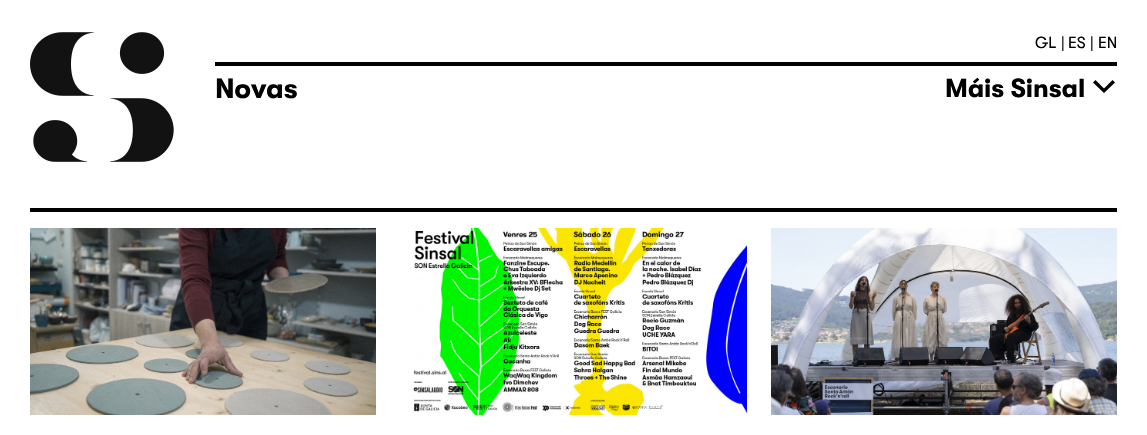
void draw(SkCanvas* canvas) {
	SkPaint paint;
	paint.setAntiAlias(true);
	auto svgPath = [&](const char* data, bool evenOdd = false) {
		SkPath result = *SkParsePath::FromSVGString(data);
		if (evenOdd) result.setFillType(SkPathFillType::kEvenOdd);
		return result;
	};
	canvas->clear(0xffffffff);
	paint.setColor(0xff000000);
	canvas->drawRect(SkRect::MakeXYWH(30, 208, 1087, 4), paint);
	canvas->drawImageRect(SkImages::DeferredFromEncodedData(SkData::MakeFromFileName("img1.png")), SkRect::MakeXYWH(30, 32, 144, 130), SkSamplingOptions());
	SkFont f1(fontMgr->matchFamilyStyle("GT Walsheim", SkFontStyle::Normal()), 16);
	f1.setSubpixel(true);
	canvas->drawString("GL", 1035, 48, f1, paint);
	paint.setColor(0xff121212);
	canvas->drawString("|", 1061, 48, f1, paint);
	paint.setColor(0xff000000);
	canvas->drawString("ES", 1068, 48, f1, paint);
	paint.setColor(0xff121212);
	canvas->drawString("|", 1090, 48, f1, paint);
	paint.setColor(0xff000000);
	canvas->drawString("EN", 1098, 48, f1, paint);
	canvas->drawRect(SkRect::MakeXYWH(215, 62, 902, 4), paint);
	SkFont f2(fontMgr->matchFamilyStyle("GT Walsheim", SkFontStyle::Bold()), 28);
	f2.setSubpixel(true);
	canvas->drawString("Novas", 215, 98, f2, paint);
	SkFont f3(fontMgr->matchFamilyStyle("GT Walsheim", SkFontStyle::Bold()), 26);
	f3.setSubpixel(true);
	canvas->drawString("Máis Sinsal", 945, 97, f3, paint);
	canvas->drawPath(svgPath("M1112.5 80L1104 88.5L1095.5 80L1093 82.5L1104 93L1115 82.5Z"), paint);
	canvas->drawImageRect(SkImages::DeferredFromEncodedData(SkData::MakeFromFileName("img2.png")), SkRect::MakeXYWH(30, 228, 346, 187), SkSamplingOptions());
	canvas->drawImageRect(SkImages::DeferredFromEncodedData(SkData::MakeFromFileName("img3.png")), SkRect::MakeXYWH(413, 228, 334, 187), SkSamplingOptions());
	canvas->drawImageRect(SkImages::DeferredFromEncodedData(SkData::MakeFromFileName("img4.png")), SkRect::MakeXYWH(771, 228, 346, 187), SkSamplingOptions());
}
